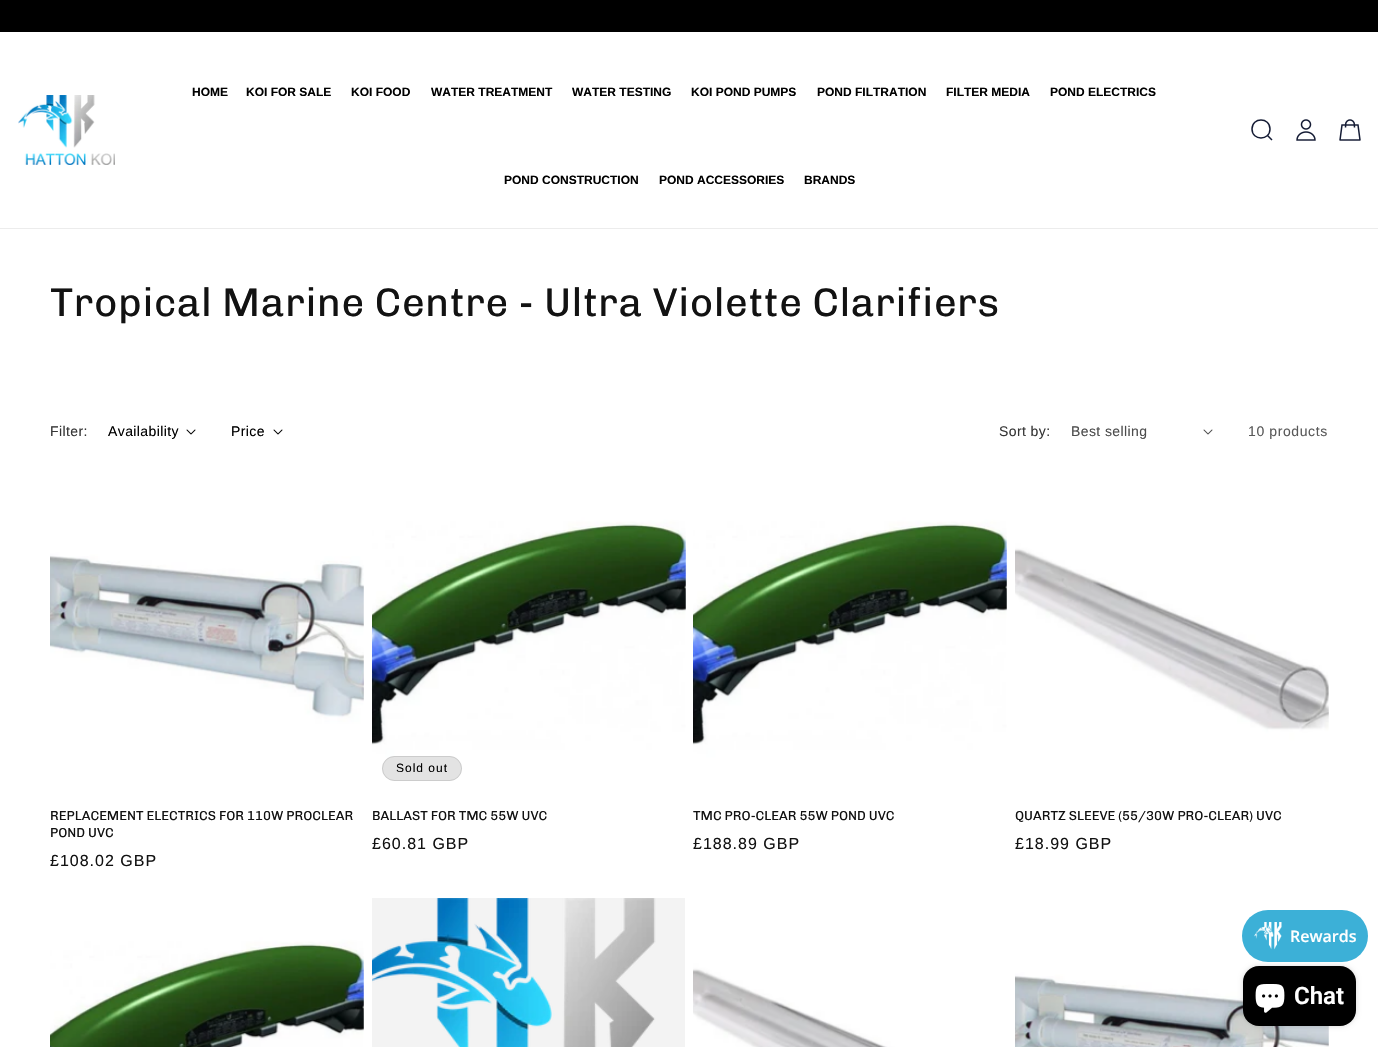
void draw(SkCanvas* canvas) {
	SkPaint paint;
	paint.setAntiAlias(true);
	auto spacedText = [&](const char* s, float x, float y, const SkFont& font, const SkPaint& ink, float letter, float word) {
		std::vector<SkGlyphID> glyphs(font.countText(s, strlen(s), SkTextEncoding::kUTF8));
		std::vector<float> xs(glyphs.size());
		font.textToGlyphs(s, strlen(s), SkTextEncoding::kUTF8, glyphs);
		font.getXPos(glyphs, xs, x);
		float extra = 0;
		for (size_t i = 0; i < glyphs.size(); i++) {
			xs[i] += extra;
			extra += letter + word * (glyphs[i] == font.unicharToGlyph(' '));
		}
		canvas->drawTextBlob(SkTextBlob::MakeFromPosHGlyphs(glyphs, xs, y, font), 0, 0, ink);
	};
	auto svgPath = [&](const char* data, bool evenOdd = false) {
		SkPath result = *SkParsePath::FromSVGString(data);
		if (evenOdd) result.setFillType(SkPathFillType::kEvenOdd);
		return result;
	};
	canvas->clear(0xffffffff);
	paint.setColor(0xff000000);
	canvas->drawRect(SkRect::MakeXYWH(0, 0, 1378, 32), paint);
	paint.setColor(0xffececec);
	canvas->drawRect(SkRect::MakeXYWH(0, 228, 1378, 1), paint);
	canvas->drawImageRect(SkImages::DeferredFromEncodedData(SkData::MakeFromFileName("img1.png")), SkRect::MakeXYWH(18, 95, 97, 70), SkSamplingOptions());
	SkFont f1(fontMgr->matchFamilyStyle("Liberation Sans", SkFontStyle::Bold()), 12);
	f1.setSubpixel(true);
	paint.setColor(0xff000000);
	canvas->drawString("HOME", 192, 96, f1, paint);
	canvas->drawString("KOI FOR SALE", 246, 96, f1, paint);
	canvas->drawString("KOI FOOD", 351, 96, f1, paint);
	canvas->drawString("WATER TREATMENT", 431, 96, f1, paint);
	canvas->drawString("WATER TESTING", 572, 96, f1, paint);
	canvas->drawString("KOI POND PUMPS", 691, 96, f1, paint);
	canvas->drawString("POND FILTRATION", 817, 96, f1, paint);
	canvas->drawString("FILTER MEDIA", 946, 96, f1, paint);
	canvas->drawString("POND ELECTRICS", 1050, 96, f1, paint);
	canvas->drawString("POND CONSTRUCTION", 504, 184, f1, paint);
	canvas->drawString("POND ACCESSORIES", 659, 184, f1, paint);
	canvas->drawString("BRANDS", 804, 184, f1, paint);
	paint.setStroke(true);
	paint.setStrokeWidth(1.5);
	paint.setStrokeJoin(SkPaint::kRound_Join);
	paint.setColor(0xff141b34);
	canvas->drawPath(svgPath("M1267.5 135.5L1272 140M1270 129C1270 117 1252 117 1252 129C1252 141 1270 141 1270 129Z"), paint);
	canvas->drawImageRect(SkImages::DeferredFromEncodedData(SkData::MakeFromFileName("img2.png")), SkRect::MakeXYWH(1296, 119, 20, 22), SkSamplingOptions());
	canvas->drawImageRect(SkImages::DeferredFromEncodedData(SkData::MakeFromFileName("img3.png")), SkRect::MakeXYWH(1339, 119, 22, 22), SkSamplingOptions());
	SkFont f2(fontMgr->matchFamilyStyle("Chivo", SkFontStyle::Normal()), 40);
	f2.setSubpixel(true);
	paint.setStroke(false);
	paint.setColor(0xff121212);
	spacedText("Tropical Marine Centre - Ultra Violette Clarifiers", 50, 316, f2, paint, 0.6, 0);
	SkFont f3(fontMgr->matchFamilyStyle("Liberation Sans", SkFontStyle::Normal()), 14);
	f3.setSubpixel(true);
	paint.setColor(0xff363636);
	spacedText("Filter:", 50, 436, f3, paint, 0.4, 0);
	paint.setColor(0xff000000);
	spacedText("Availability", 108, 436, f3, paint, 0.4, 0);
	canvas->drawImageRect(SkImages::DeferredFromEncodedData(SkData::MakeFromFileName("img4.png")), SkRect::MakeXYWH(186, 429, 10, 6), SkSamplingOptions());
	spacedText("Price", 231, 436, f3, paint, 0.4, 0);
	canvas->drawImageRect(SkImages::DeferredFromEncodedData(SkData::MakeFromFileName("img4.png")), SkRect::MakeXYWH(273, 429, 10, 6), SkSamplingOptions());
	paint.setColor(0xff363636);
	spacedText("Sort by:", 999, 436, f3, paint, 0.4, 0);
	paint.setColor(0xff4d4d4d);
	spacedText("Best selling", 1071, 436, f3, paint, 0.4, 0);
	canvas->drawImageRect(SkImages::DeferredFromEncodedData(SkData::MakeFromFileName("img5.png")), SkRect::MakeXYWH(1203, 429, 10, 6), SkSamplingOptions());
	paint.setColor(0xff595959);
	spacedText("10 products", 1248, 436, f3, paint, 0.6, 0);
	canvas->drawImageRect(SkImages::DeferredFromEncodedData(SkData::MakeFromFileName("img6.png")), SkRect::MakeXYWH(50, 478, 314, 313), SkSamplingOptions());
	SkFont f4(fontMgr->matchFamilyStyle("Chivo", SkFontStyle::Normal()), 13);
	f4.setSubpixel(true);
	paint.setColor(0xff121212);
	canvas->drawString("REPLACEMENT ELECTRICS FOR 110W PROCLEAR", 50, 820, f4, paint);
	canvas->drawString("POND UVC", 50, 837, f4, paint);
	SkFont f5(fontMgr->matchFamilyStyle("Liberation Sans", SkFontStyle::Normal()), 16);
	f5.setSubpixel(true);
	spacedText("£108.02 GBP", 50, 866, f5, paint, 1, 0);
	canvas->drawImageRect(SkImages::DeferredFromEncodedData(SkData::MakeFromFileName("img7.png")), SkRect::MakeXYWH(372, 478, 314, 313), SkSamplingOptions());
	paint.setColor(0xffe3e3e3);
	canvas->drawRoundRect(SkRect::MakeXYWH(382, 756, 80, 25), 12.5, 12.5, paint);
	paint.setStroke(true);
	paint.setStrokeWidth(1);
	paint.setStrokeJoin(SkPaint::kMiter_Join);
	paint.setColor(0x1a000000);
	canvas->drawRoundRect(SkRect::MakeXYWH(382.5, 756.5, 79, 24), 12, 12, paint);
	SkFont f6(fontMgr->matchFamilyStyle("Liberation Sans", SkFontStyle::Normal()), 12);
	f6.setSubpixel(true);
	paint.setStroke(false);
	paint.setColor(0xff000000);
	spacedText("Sold out", 396, 772, f6, paint, 1, 0);
	paint.setColor(0xff121212);
	canvas->drawString("BALLAST FOR TMC 55W UVC", 372, 820, f4, paint);
	spacedText("£60.81 GBP", 372, 849, f5, paint, 1, 0);
	canvas->drawImageRect(SkImages::DeferredFromEncodedData(SkData::MakeFromFileName("img8.png")), SkRect::MakeXYWH(693, 478, 314, 313), SkSamplingOptions());
	canvas->drawString("TMC PRO-CLEAR 55W POND UVC", 693, 820, f4, paint);
	spacedText("£188.89 GBP", 693, 849, f5, paint, 1, 0);
	canvas->drawImageRect(SkImages::DeferredFromEncodedData(SkData::MakeFromFileName("img9.png")), SkRect::MakeXYWH(1015, 478, 314, 313), SkSamplingOptions());
	canvas->drawString("QUARTZ SLEEVE (55/30W PRO-CLEAR) UVC", 1015, 820, f4, paint);
	spacedText("£18.99 GBP", 1015, 849, f5, paint, 1, 0);
	canvas->drawImageRect(SkImages::DeferredFromEncodedData(SkData::MakeFromFileName("img10.png")), SkRect::MakeXYWH(50, 898, 314, 149), SkSamplingOptions());
	paint.setColor(0xfff3f3f3);
	canvas->drawRect(SkRect::MakeXYWH(372, 898, 313, 149), paint);
	canvas->drawImageRect(SkImages::DeferredFromEncodedData(SkData::MakeFromFileName("img11.png")), SkRect::MakeXYWH(372, 898, 284, 149), SkSamplingOptions());
	canvas->drawImageRect(SkImages::DeferredFromEncodedData(SkData::MakeFromFileName("img12.png")), SkRect::MakeXYWH(693, 898, 314, 149), SkSamplingOptions());
	canvas->drawImageRect(SkImages::DeferredFromEncodedData(SkData::MakeFromFileName("img13.png")), SkRect::MakeXYWH(1015, 898, 314, 149), SkSamplingOptions());
	paint.setColor(0xff3cb0d7);
	canvas->drawRoundRect(SkRect::MakeXYWH(1242, 910, 126, 52), 26, 26, paint);
	canvas->drawImageRect(SkImages::DeferredFromEncodedData(SkData::MakeFromFileName("img14.png")), SkRect::MakeXYWH(1254, 922, 28, 28), SkSamplingOptions());
	SkFont f7(fontMgr->matchFamilyStyle("Open Sans", SkFontStyle(600, SkFontStyle::kNormal_Width, SkFontStyle::kUpright_Slant)), 16);
	f7.setSubpixel(true);
	paint.setColor(0xffffffff);
	canvas->drawString("Rewards", 1290, 942, f7, paint);
	paint.setColor(0x26000000);
	paint.setMaskFilter(SkMaskFilter::MakeBlur(kNormal_SkBlurStyle, 2.5));
	canvas->drawRoundRect(SkRect::MakeXYWH(1243, 966, 113, 60), 16, 16, paint);
	paint.setMaskFilter(nullptr);
	paint.setColor(0xff000000);
	canvas->drawRoundRect(SkRect::MakeXYWH(1243, 966, 113, 60), 16, 16, paint);
	canvas->drawImageRect(SkImages::DeferredFromEncodedData(SkData::MakeFromFileName("img15.png")), SkRect::MakeXYWH(1255, 984, 30, 29), SkSamplingOptions());
	SkFont f8(fontMgr->matchFamilyStyle("Roboto", SkFontStyle(600, SkFontStyle::kNormal_Width, SkFontStyle::kUpright_Slant)), 24);
	f8.setSubpixel(true);
	paint.setColor(0xffffffff);
	canvas->drawString("Chat", 1294, 1004, f8, paint);
}
